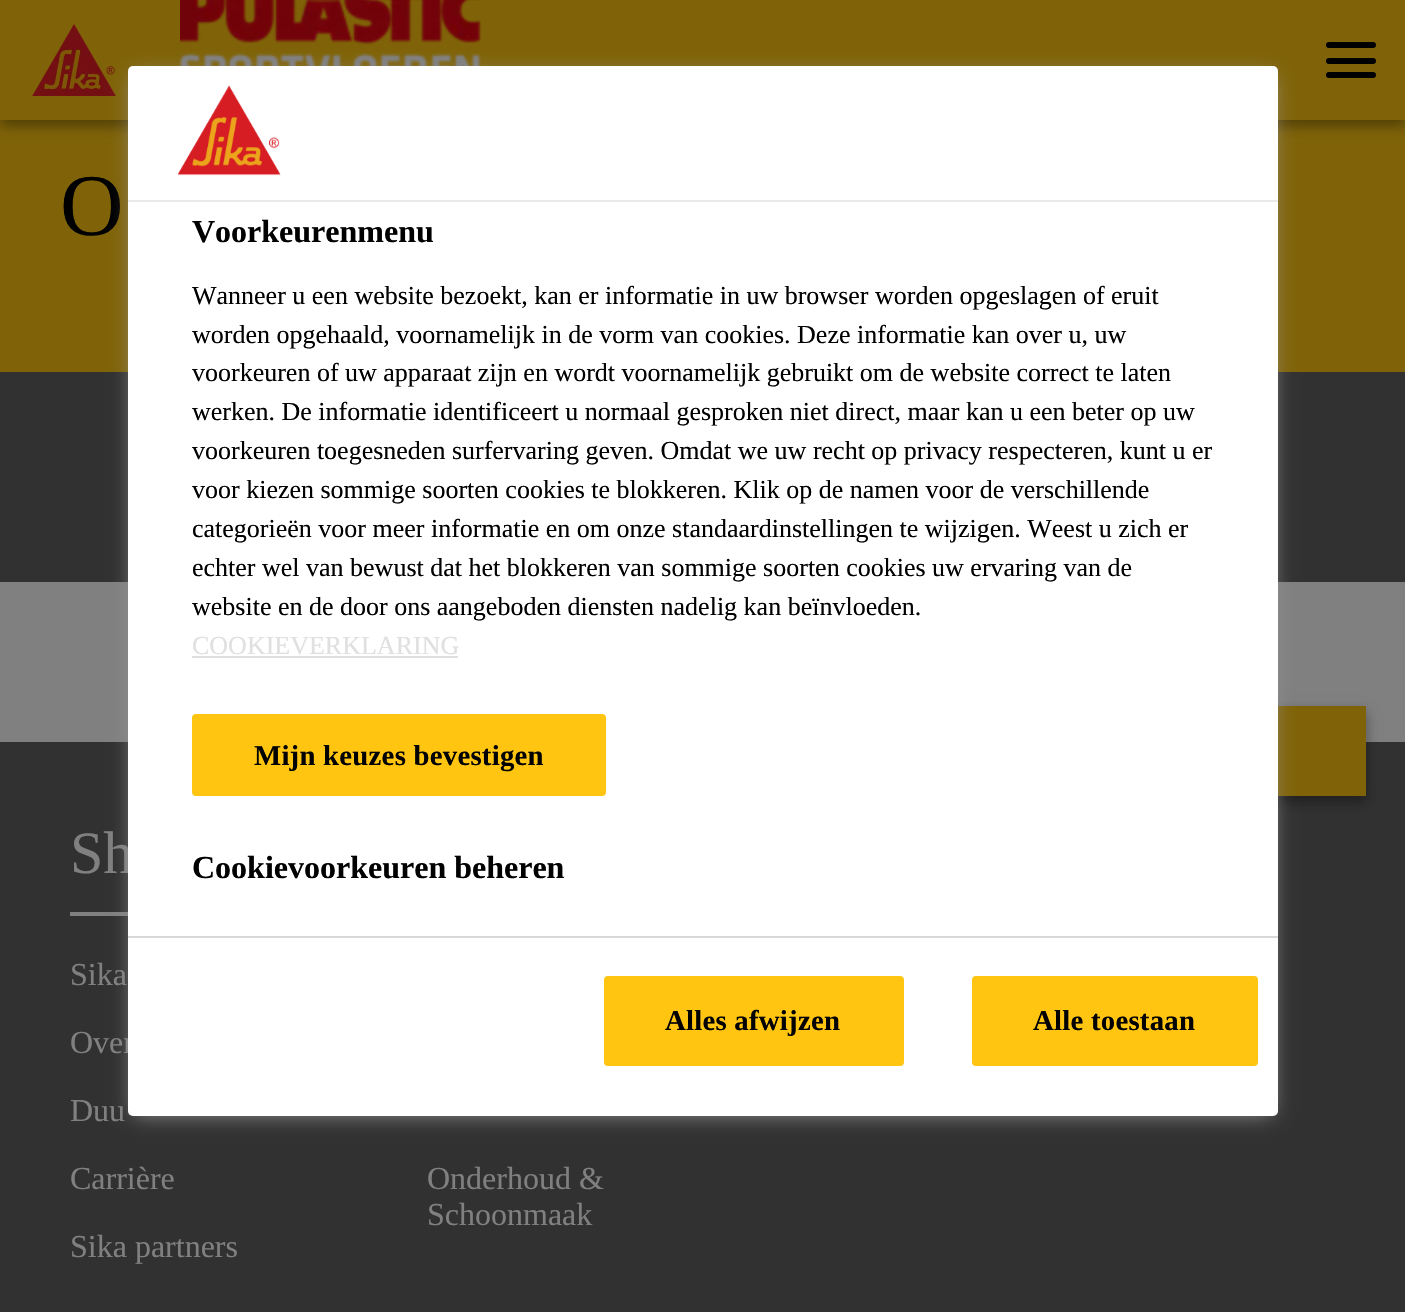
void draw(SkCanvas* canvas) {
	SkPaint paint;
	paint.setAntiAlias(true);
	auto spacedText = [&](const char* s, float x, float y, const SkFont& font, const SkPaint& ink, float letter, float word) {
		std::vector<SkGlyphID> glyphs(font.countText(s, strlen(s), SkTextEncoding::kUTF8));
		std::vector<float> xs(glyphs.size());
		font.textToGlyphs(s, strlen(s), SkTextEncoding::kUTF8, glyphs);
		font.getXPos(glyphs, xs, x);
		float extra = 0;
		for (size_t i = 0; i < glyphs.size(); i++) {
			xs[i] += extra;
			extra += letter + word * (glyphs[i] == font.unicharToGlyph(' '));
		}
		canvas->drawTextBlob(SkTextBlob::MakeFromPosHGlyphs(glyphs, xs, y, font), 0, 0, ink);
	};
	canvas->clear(0xff808080);
	paint.setColor(0xff806308);
	canvas->drawRect(SkRect::MakeXYWH(0, 120, 1405, 252), paint);
	paint.setColor(0x3b000000);
	paint.setMaskFilter(SkMaskFilter::MakeBlur(kNormal_SkBlurStyle, 6));
	canvas->drawRect(SkRect::MakeXYWH(0, 6, 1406, 120), paint);
	paint.setMaskFilter(nullptr);
	paint.setColor(0x29000000);
	paint.setMaskFilter(SkMaskFilter::MakeBlur(kNormal_SkBlurStyle, 6));
	canvas->drawRect(SkRect::MakeXYWH(0, 6, 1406, 120), paint);
	paint.setMaskFilter(nullptr);
	paint.setColor(0xff806308);
	canvas->drawRect(SkRect::MakeXYWH(0, 0, 1405, 120), paint);
	canvas->drawImageRect(SkImages::DeferredFromEncodedData(SkData::MakeFromFileName("img1.png")), SkRect::MakeXYWH(32, 24, 84, 72), SkSamplingOptions());
	canvas->drawImageRect(SkImages::DeferredFromEncodedData(SkData::MakeFromFileName("img2.png")), SkRect::MakeXYWH(180, 0, 302, 66), SkSamplingOptions());
	paint.setColor(0xff000000);
	canvas->drawRoundRect(SkRect::MakeXYWH(1326, 42, 50, 6), 3, 3, paint);
	canvas->drawRoundRect(SkRect::MakeXYWH(1326, 58, 50, 6), 3, 3, paint);
	canvas->drawRoundRect(SkRect::MakeXYWH(1326, 72, 50, 6), 3, 3, paint);
	paint.setColor(0xff313131);
	canvas->drawRect(SkRect::MakeXYWH(0, 372, 1405, 210), paint);
	SkFont f1(fontMgr->matchFamilyStyle("Liberation Serif", SkFontStyle::Normal()), 88);
	f1.setSubpixel(true);
	paint.setColor(0xff000000);
	canvas->drawString("O", 60, 235, f1, paint);
	paint.setColor(0xff313131);
	canvas->drawRect(SkRect::MakeXYWH(0, 742, 1405, 570), paint);
	paint.setColor(0x3b000000);
	paint.setMaskFilter(SkMaskFilter::MakeBlur(kNormal_SkBlurStyle, 6));
	canvas->drawRect(SkRect::MakeXYWH(1276, 712, 90, 90), paint);
	paint.setMaskFilter(nullptr);
	paint.setColor(0x29000000);
	paint.setMaskFilter(SkMaskFilter::MakeBlur(kNormal_SkBlurStyle, 6));
	canvas->drawRect(SkRect::MakeXYWH(1276, 712, 90, 90), paint);
	paint.setMaskFilter(nullptr);
	paint.setColor(0xff806308);
	canvas->drawRect(SkRect::MakeXYWH(1278, 706, 88, 90), paint);
	paint.setColor(0xff808080);
	canvas->drawRect(SkRect::MakeXYWH(70, 912, 58, 4), paint);
	SkFont f2(fontMgr->matchFamilyStyle("Liberation Serif", SkFontStyle::Normal()), 60);
	f2.setSubpixel(true);
	canvas->drawString("Sh", 70, 873, f2, paint);
	SkFont f3(fontMgr->matchFamilyStyle("Liberation Serif", SkFontStyle::Normal()), 32);
	f3.setSubpixel(true);
	canvas->drawString("Sika", 70, 985, f3, paint);
	canvas->drawString("Over", 70, 1053, f3, paint);
	canvas->drawString("Duu", 70, 1121, f3, paint);
	canvas->drawString("Carrière", 70, 1189, f3, paint);
	canvas->drawString("Sika partners", 70, 1257, f3, paint);
	canvas->drawString("Onderhoud &", 427, 1189, f3, paint);
	canvas->drawString("Schoonmaak", 427, 1225, f3, paint);
	paint.setColor(0xff999999);
	paint.setMaskFilter(SkMaskFilter::MakeBlur(kNormal_SkBlurStyle, 10));
	canvas->drawRect(SkRect::MakeXYWH(134, 76, 1138, 1038), paint);
	paint.setMaskFilter(nullptr);
	paint.setColor(0xffffffff);
	canvas->drawRoundRect(SkRect::MakeXYWH(128, 66, 1150, 1050), 5, 5, paint);
	paint.setColor(0xffe9e9e9);
	canvas->drawRect(SkRect::MakeXYWH(128, 200, 1150, 2), paint);
	canvas->drawImageRect(SkImages::DeferredFromEncodedData(SkData::MakeFromFileName("img3.png")), SkRect::MakeXYWH(177, 85, 104, 91), SkSamplingOptions());
	SkFont f4(fontMgr->matchFamilyStyle("Liberation Serif", SkFontStyle::Bold()), 32);
	f4.setSubpixel(true);
	paint.setColor(0xff000000);
	canvas->drawString("Voorkeurenmenu", 192, 242, f4, paint);
	SkFont f5(fontMgr->matchFamilyStyle("Liberation Serif", SkFontStyle::Normal()), 26);
	f5.setSubpixel(true);
	canvas->drawString("Wanneer u een website bezoekt, kan er informatie in uw browser worden opgeslagen of eruit", 192, 304, f5, paint);
	canvas->drawString("worden opgehaald, voornamelijk in de vorm van cookies. Deze informatie kan over u, uw", 192, 343, f5, paint);
	canvas->drawString("voorkeuren of uw apparaat zijn en wordt voornamelijk gebruikt om de website correct te laten", 192, 381, f5, paint);
	canvas->drawString("werken. De informatie identificeert u normaal gesproken niet direct, maar kan u een beter op uw", 192, 420, f5, paint);
	canvas->drawString("voorkeuren toegesneden surfervaring geven. Omdat we uw recht op privacy respecteren, kunt u er", 192, 459, f5, paint);
	canvas->drawString("voor kiezen sommige soorten cookies te blokkeren. Klik op de namen voor de verschillende", 192, 498, f5, paint);
	canvas->drawString("categorieën voor meer informatie en om onze standaardinstellingen te wijzigen. Weest u zich er", 192, 537, f5, paint);
	canvas->drawString("echter wel van bewust dat het blokkeren van sommige soorten cookies uw ervaring van de", 192, 576, f5, paint);
	canvas->drawString("website en de door ons aangeboden diensten nadelig kan beïnvloeden.", 192, 615, f5, paint);
	paint.setColor(0xffe0e0e0);
	canvas->drawString("COOKIEVERKLARING", 192, 654, f5, paint);
	canvas->drawRect(SkRect::MakeXYWH(192, 656, 266, 2), paint);
	paint.setColor(0xffffc510);
	canvas->drawRoundRect(SkRect::MakeXYWH(193, 715, 412, 80), 3, 3, paint);
	paint.setStroke(true);
	paint.setStrokeWidth(2);
	canvas->drawRoundRect(SkRect::MakeXYWH(193, 715, 412, 80), 3, 3, paint);
	SkFont f6(fontMgr->matchFamilyStyle("Liberation Serif", SkFontStyle::Bold()), 28.75);
	f6.setSubpixel(true);
	paint.setStroke(false);
	paint.setColor(0xff000000);
	spacedText("Mijn keuzes bevestigen", 254, 765, f6, paint, 0.25, 0);
	canvas->drawString("Cookievoorkeuren beheren", 192, 878, f4, paint);
	paint.setColor(0xffd8d8d8);
	canvas->drawRect(SkRect::MakeXYWH(128, 936, 1150, 2), paint);
	paint.setColor(0xffffc510);
	canvas->drawRoundRect(SkRect::MakeXYWH(605, 977, 298, 88), 3, 3, paint);
	paint.setStroke(true);
	canvas->drawRoundRect(SkRect::MakeXYWH(605, 977, 298, 88), 3, 3, paint);
	paint.setStroke(false);
	paint.setColor(0xff000000);
	spacedText("Alles afwijzen", 665, 1030, f6, paint, 0.25, 0);
	paint.setColor(0xffffc510);
	canvas->drawRoundRect(SkRect::MakeXYWH(973, 977, 284, 88), 3, 3, paint);
	paint.setStroke(true);
	canvas->drawRoundRect(SkRect::MakeXYWH(973, 977, 284, 88), 3, 3, paint);
	paint.setStroke(false);
	paint.setColor(0xff000000);
	spacedText("Alle toestaan", 1033, 1030, f6, paint, 0.25, 0);
}
